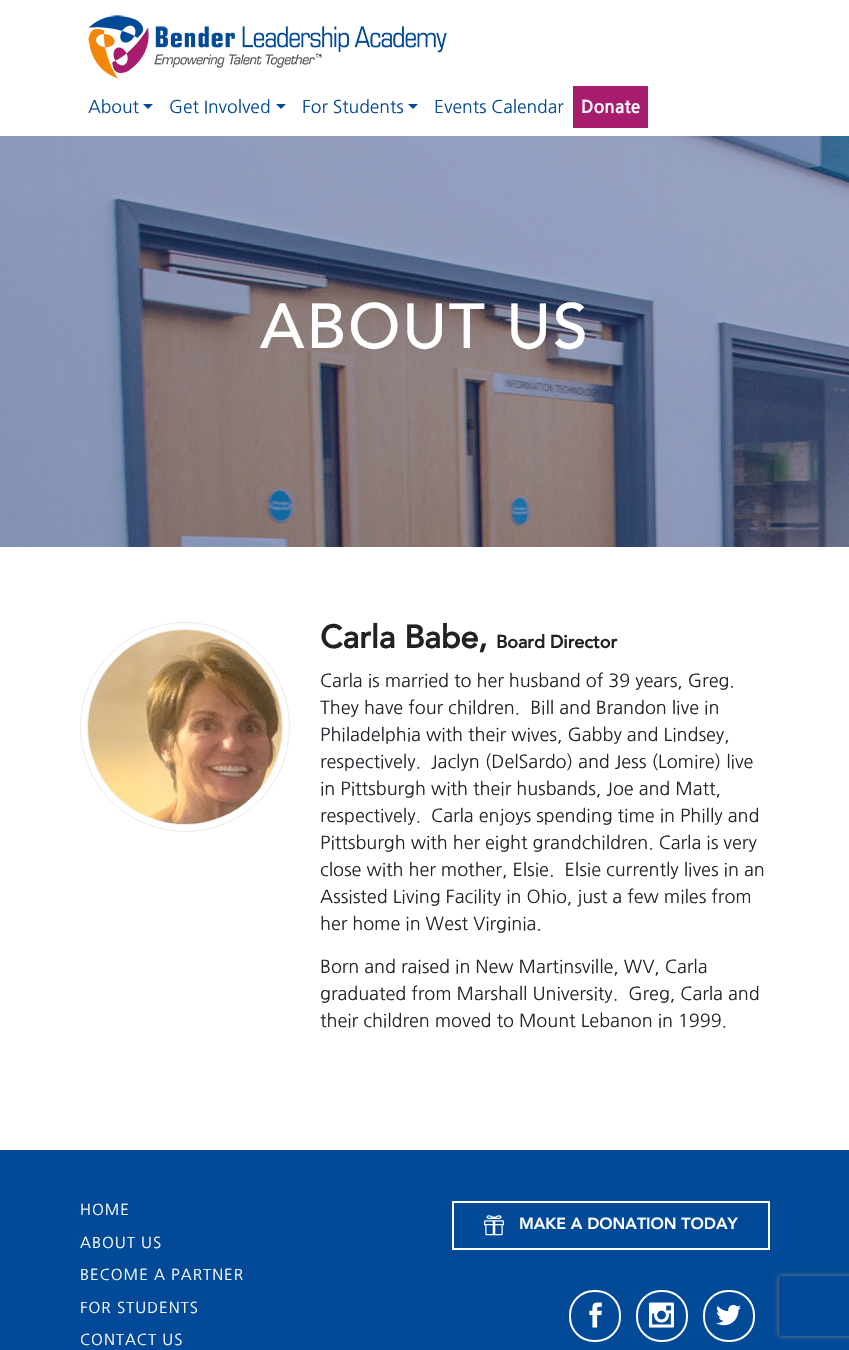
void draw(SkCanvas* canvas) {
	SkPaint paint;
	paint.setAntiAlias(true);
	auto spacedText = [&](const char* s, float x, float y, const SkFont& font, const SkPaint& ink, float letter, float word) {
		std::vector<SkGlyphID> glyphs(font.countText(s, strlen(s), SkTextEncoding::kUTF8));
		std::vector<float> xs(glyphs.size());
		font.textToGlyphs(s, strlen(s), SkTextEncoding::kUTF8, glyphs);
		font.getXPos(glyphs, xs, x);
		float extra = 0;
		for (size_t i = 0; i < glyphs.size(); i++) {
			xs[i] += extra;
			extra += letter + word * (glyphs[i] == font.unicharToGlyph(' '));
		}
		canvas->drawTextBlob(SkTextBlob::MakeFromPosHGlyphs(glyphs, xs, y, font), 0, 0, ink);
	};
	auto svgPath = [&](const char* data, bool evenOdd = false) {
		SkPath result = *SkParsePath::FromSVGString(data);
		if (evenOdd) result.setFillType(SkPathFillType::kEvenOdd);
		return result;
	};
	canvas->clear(0xffffffff);
	canvas->drawImageRect(SkImages::DeferredFromEncodedData(SkData::MakeFromFileName("img1.png")), SkRect::MakeXYWH(88, 15, 359, 64), SkSamplingOptions());
	SkFont f1(fontMgr->matchFamilyStyle("NanumGothic", SkFontStyle::Normal()), 17.5);
	f1.setSubpixel(true);
	paint.setColor(0xff024a98);
	canvas->drawString("About", 88, 113, f1, paint);
	canvas->drawPath(svgPath("M143 104H153L148 109Z"), paint);
	canvas->drawString("Get Involved", 169, 113, f1, paint);
	canvas->drawPath(svgPath("M276 104H286L281 109Z"), paint);
	canvas->drawString("For Students", 302, 113, f1, paint);
	canvas->drawPath(svgPath("M408 104H418L413 109Z"), paint);
	canvas->drawString("Events Calendar", 434, 113, f1, paint);
	paint.setColor(0xffa81c6d);
	canvas->drawRect(SkRect::MakeXYWH(573, 86, 75, 42), paint);
	SkFont f2(fontMgr->matchFamilyStyle("NanumGothic", SkFontStyle::Bold()), 17.5);
	f2.setSubpixel(true);
	paint.setColor(0xffffffff);
	canvas->drawString("Donate", 581, 113, f2, paint);
	canvas->drawImageRect(SkImages::DeferredFromEncodedData(SkData::MakeFromFileName("img2.png")), SkRect::MakeXYWH(0, 136, 849, 411), SkSamplingOptions());
	SkFont f3(fontMgr->matchFamilyStyle("Avenir", SkFontStyle::Normal()), 63);
	f3.setSubpixel(true);
	spacedText("ABOUT US", 260, 348, f3, paint, 2, 0);
	paint.setStroke(true);
	paint.setStrokeWidth(1);
	paint.setColor(0xffebebeb);
	canvas->drawCircle(185, 727, 104.5, paint);
	canvas->drawCircle(185, 727, 97.5, paint);
	canvas->drawImageRect(SkImages::DeferredFromEncodedData(SkData::MakeFromFileName("img3.png")), SkRect::MakeXYWH(88, 630, 194, 194), SkSamplingOptions());
	SkFont f4(fontMgr->matchFamilyStyle("Avenir", SkFontStyle::Bold()), 32);
	f4.setSubpixel(true);
	paint.setStroke(false);
	paint.setColor(0xff222222);
	canvas->drawString("Carla Babe,", 320, 648, f4, paint);
	SkFont f5(fontMgr->matchFamilyStyle("Avenir", SkFontStyle::Bold()), 18);
	f5.setSubpixel(true);
	canvas->drawString("Board Director", 496, 648, f5, paint);
	SkFont f6(fontMgr->matchFamilyStyle("NanumGothic", SkFontStyle::Normal()), 18);
	f6.setSubpixel(true);
	paint.setColor(0xff212529);
	canvas->drawString("Carla is married to her husband of 39 years, Greg.", 320, 687, f6, paint);
	canvas->drawString("They have four children.  Bill and Brandon live in", 320, 714, f6, paint);
	canvas->drawString("Philadelphia with their wives, Gabby and Lindsey,", 320, 741, f6, paint);
	canvas->drawString("respectively.  Jaclyn (DelSardo) and Jess (Lomire) live", 320, 768, f6, paint);
	canvas->drawString("in Pittsburgh with their husbands, Joe and Matt,", 320, 795, f6, paint);
	canvas->drawString("respectively.  Carla enjoys spending time in Philly and", 320, 822, f6, paint);
	canvas->drawString("Pittsburgh with her eight grandchildren. Carla is very", 320, 849, f6, paint);
	canvas->drawString("close with her mother, Elsie.  Elsie currently lives in an", 320, 876, f6, paint);
	canvas->drawString("Assisted Living Facility in Ohio, just a few miles from", 320, 903, f6, paint);
	canvas->drawString("her home in West Virginia.", 320, 930, f6, paint);
	canvas->drawString("Born and raised in New Martinsville, WV, Carla", 320, 973, f6, paint);
	canvas->drawString("graduated from Marshall University.  Greg, Carla and", 320, 1000, f6, paint);
	canvas->drawString("their children moved to Mount Lebanon in 1999.", 320, 1027, f6, paint);
	paint.setColor(0xff024a98);
	canvas->drawRect(SkRect::MakeXYWH(0, 1150, 849, 200), paint);
	SkFont f7(fontMgr->matchFamilyStyle("NanumGothic", SkFontStyle::Normal()), 15);
	f7.setSubpixel(true);
	paint.setColor(0xffffffff);
	spacedText("HOME", 80, 1215, f7, paint, 1, 0);
	spacedText("ABOUT US", 80, 1248, f7, paint, 1, 0);
	spacedText("BECOME A PARTNER", 80, 1280, f7, paint, 1, 0);
	spacedText("FOR STUDENTS", 80, 1313, f7, paint, 1, 0);
	spacedText("CONTACT US", 80, 1345, f7, paint, 1, 0);
	paint.setStroke(true);
	paint.setStrokeWidth(2);
	canvas->drawRect(SkRect::MakeXYWH(453, 1202, 316, 47), paint);
	canvas->drawImageRect(SkImages::DeferredFromEncodedData(SkData::MakeFromFileName("img4.png")), SkRect::MakeXYWH(484, 1215, 20, 21), SkSamplingOptions());
	SkFont f8(fontMgr->matchFamilyStyle("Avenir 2", SkFontStyle::Normal()), 16);
	f8.setSubpixel(true);
	paint.setStroke(false);
	canvas->drawString("MAKE A DONATION TODAY", 519, 1229, f8, paint);
	paint.setStroke(true);
	canvas->drawRoundRect(SkRect::MakeXYWH(570, 1291, 50, 50), 24, 24, paint);
	canvas->drawImageRect(SkImages::DeferredFromEncodedData(SkData::MakeFromFileName("img5.png")), SkRect::MakeXYWH(589, 1302, 13, 26), SkSamplingOptions());
	canvas->drawRoundRect(SkRect::MakeXYWH(637, 1291, 50, 50), 24, 24, paint);
	canvas->drawImageRect(SkImages::DeferredFromEncodedData(SkData::MakeFromFileName("img6.png")), SkRect::MakeXYWH(649, 1302, 25, 26), SkSamplingOptions());
	canvas->drawRoundRect(SkRect::MakeXYWH(704, 1291, 50, 50), 24, 24, paint);
	canvas->drawImageRect(SkImages::DeferredFromEncodedData(SkData::MakeFromFileName("img7.png")), SkRect::MakeXYWH(716, 1304, 25, 22), SkSamplingOptions());
	canvas->save();
	canvas->clipPath(svgPath("M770 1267H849V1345H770ZM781 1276H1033C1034 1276 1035 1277 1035 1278V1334C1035 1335 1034 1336 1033 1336H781C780 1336 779 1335 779 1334V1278C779 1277 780 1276 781 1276Z", true), true);
	paint.setStroke(false);
	paint.setColor(0xff808080);
	paint.setMaskFilter(SkMaskFilter::MakeBlur(kNormal_SkBlurStyle, 2.5));
	canvas->drawRoundRect(SkRect::MakeXYWH(779, 1276, 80, 60), 2, 2, paint);
	paint.setMaskFilter(nullptr);
	canvas->restore();
}
